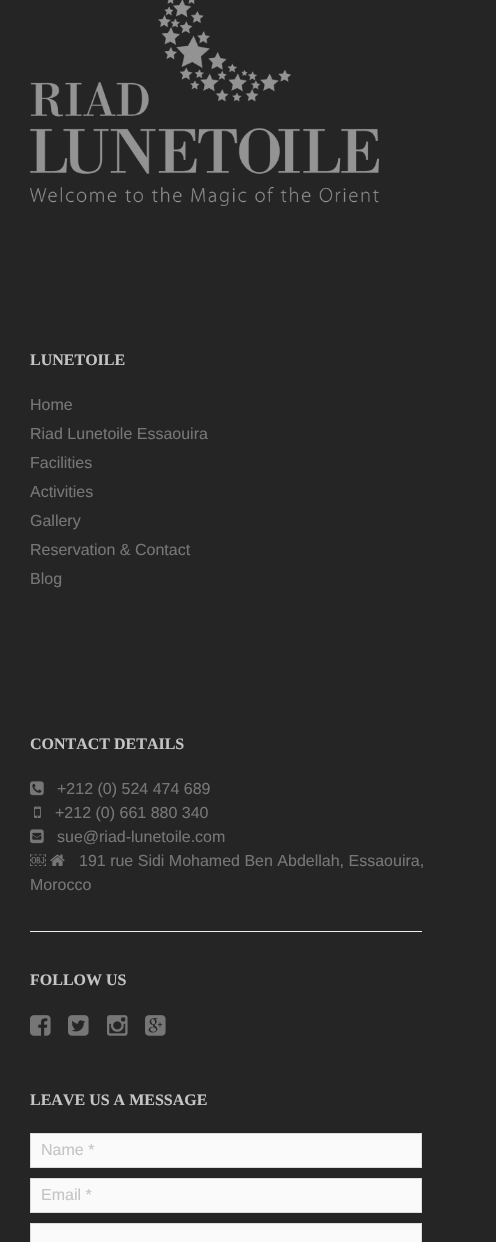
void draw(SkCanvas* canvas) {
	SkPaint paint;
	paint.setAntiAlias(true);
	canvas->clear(0xff252525);
	canvas->drawImageRect(SkImages::DeferredFromEncodedData(SkData::MakeFromFileName("img1.png")), SkRect::MakeXYWH(30, 0, 349, 206), SkSamplingOptions());
	SkFont f1(fontMgr->matchFamilyStyle("Liberation Serif", SkFontStyle::Bold()), 16);
	f1.setSubpixel(true);
	paint.setColor(0xffc5c5c5);
	canvas->drawString("LUNETOILE", 30, 365, f1, paint);
	SkFont f2(fontMgr->matchFamilyStyle("Liberation Sans", SkFontStyle::Normal()), 16);
	f2.setSubpixel(true);
	paint.setColor(0xff767676);
	canvas->drawString("Home", 30, 410, f2, paint);
	canvas->drawString("Riad Lunetoile Essaouira", 30, 439, f2, paint);
	canvas->drawString("Facilities", 30, 468, f2, paint);
	canvas->drawString("Activities", 30, 497, f2, paint);
	canvas->drawString("Gallery", 30, 526, f2, paint);
	canvas->drawString("Reservation & Contact", 30, 555, f2, paint);
	canvas->drawString("Blog", 30, 584, f2, paint);
	paint.setColor(0xffc5c5c5);
	canvas->drawString("CONTACT DETAILS", 30, 749, f1, paint);
	canvas->drawImageRect(SkImages::DeferredFromEncodedData(SkData::MakeFromFileName("img2.png")), SkRect::MakeXYWH(30, 781, 14, 15), SkSamplingOptions());
	paint.setColor(0xff767676);
	canvas->drawString("+212 (0) 524 474 689", 57, 794, f2, paint);
	canvas->drawImageRect(SkImages::DeferredFromEncodedData(SkData::MakeFromFileName("img3.png")), SkRect::MakeXYWH(34, 806, 7, 12), SkSamplingOptions());
	canvas->drawString("+212 (0) 661 880 340", 55, 818, f2, paint);
	canvas->drawImageRect(SkImages::DeferredFromEncodedData(SkData::MakeFromFileName("img4.png")), SkRect::MakeXYWH(30, 829, 14, 15), SkSamplingOptions());
	canvas->drawString("sue@riad-lunetoile.com", 57, 842, f2, paint);
	canvas->drawString("￼", 30, 866, f2, paint);
	canvas->drawImageRect(SkImages::DeferredFromEncodedData(SkData::MakeFromFileName("img5.png")), SkRect::MakeXYWH(50, 854, 15, 12), SkSamplingOptions());
	canvas->drawString("191 rue Sidi Mohamed Ben Abdellah, Essaouira,", 79, 866, f2, paint);
	canvas->drawString("Morocco", 30, 890, f2, paint);
	paint.setColor(0xffeeeeee);
	canvas->drawRect(SkRect::MakeXYWH(30, 931, 392, 1), paint);
	paint.setColor(0xffc5c5c5);
	canvas->drawString("FOLLOW US", 30, 985, f1, paint);
	canvas->drawImageRect(SkImages::DeferredFromEncodedData(SkData::MakeFromFileName("img6.png")), SkRect::MakeXYWH(30, 1015, 21, 21), SkSamplingOptions());
	canvas->drawImageRect(SkImages::DeferredFromEncodedData(SkData::MakeFromFileName("img7.png")), SkRect::MakeXYWH(68, 1015, 21, 21), SkSamplingOptions());
	canvas->drawImageRect(SkImages::DeferredFromEncodedData(SkData::MakeFromFileName("img8.png")), SkRect::MakeXYWH(107, 1015, 21, 21), SkSamplingOptions());
	canvas->drawImageRect(SkImages::DeferredFromEncodedData(SkData::MakeFromFileName("img9.png")), SkRect::MakeXYWH(145, 1015, 21, 21), SkSamplingOptions());
	canvas->drawString("LEAVE US A MESSAGE", 30, 1105, f1, paint);
	paint.setColor(0xfffafafa);
	canvas->drawRect(SkRect::MakeXYWH(30.5, 1133.5, 391, 34), paint);
	paint.setStroke(true);
	paint.setStrokeWidth(1);
	paint.setColor(0xffdbdbdb);
	canvas->drawRect(SkRect::MakeXYWH(30.5, 1133.5, 391, 34), paint);
	paint.setStroke(false);
	paint.setColor(0xffc5c5c5);
	canvas->drawString("Name *", 41, 1155, f2, paint);
	paint.setColor(0xfffafafa);
	canvas->drawRect(SkRect::MakeXYWH(30.5, 1178.5, 391, 34), paint);
	paint.setStroke(true);
	paint.setColor(0xffdbdbdb);
	canvas->drawRect(SkRect::MakeXYWH(30.5, 1178.5, 391, 34), paint);
	paint.setStroke(false);
	paint.setColor(0xffc5c5c5);
	canvas->drawString("Email *", 41, 1200, f2, paint);
	paint.setColor(0xfffafafa);
	canvas->drawRect(SkRect::MakeXYWH(30.5, 1223.5, 391, 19), paint);
	paint.setStroke(true);
	paint.setColor(0xffdbdbdb);
	canvas->drawRect(SkRect::MakeXYWH(30.5, 1223.5, 391, 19), paint);
}
